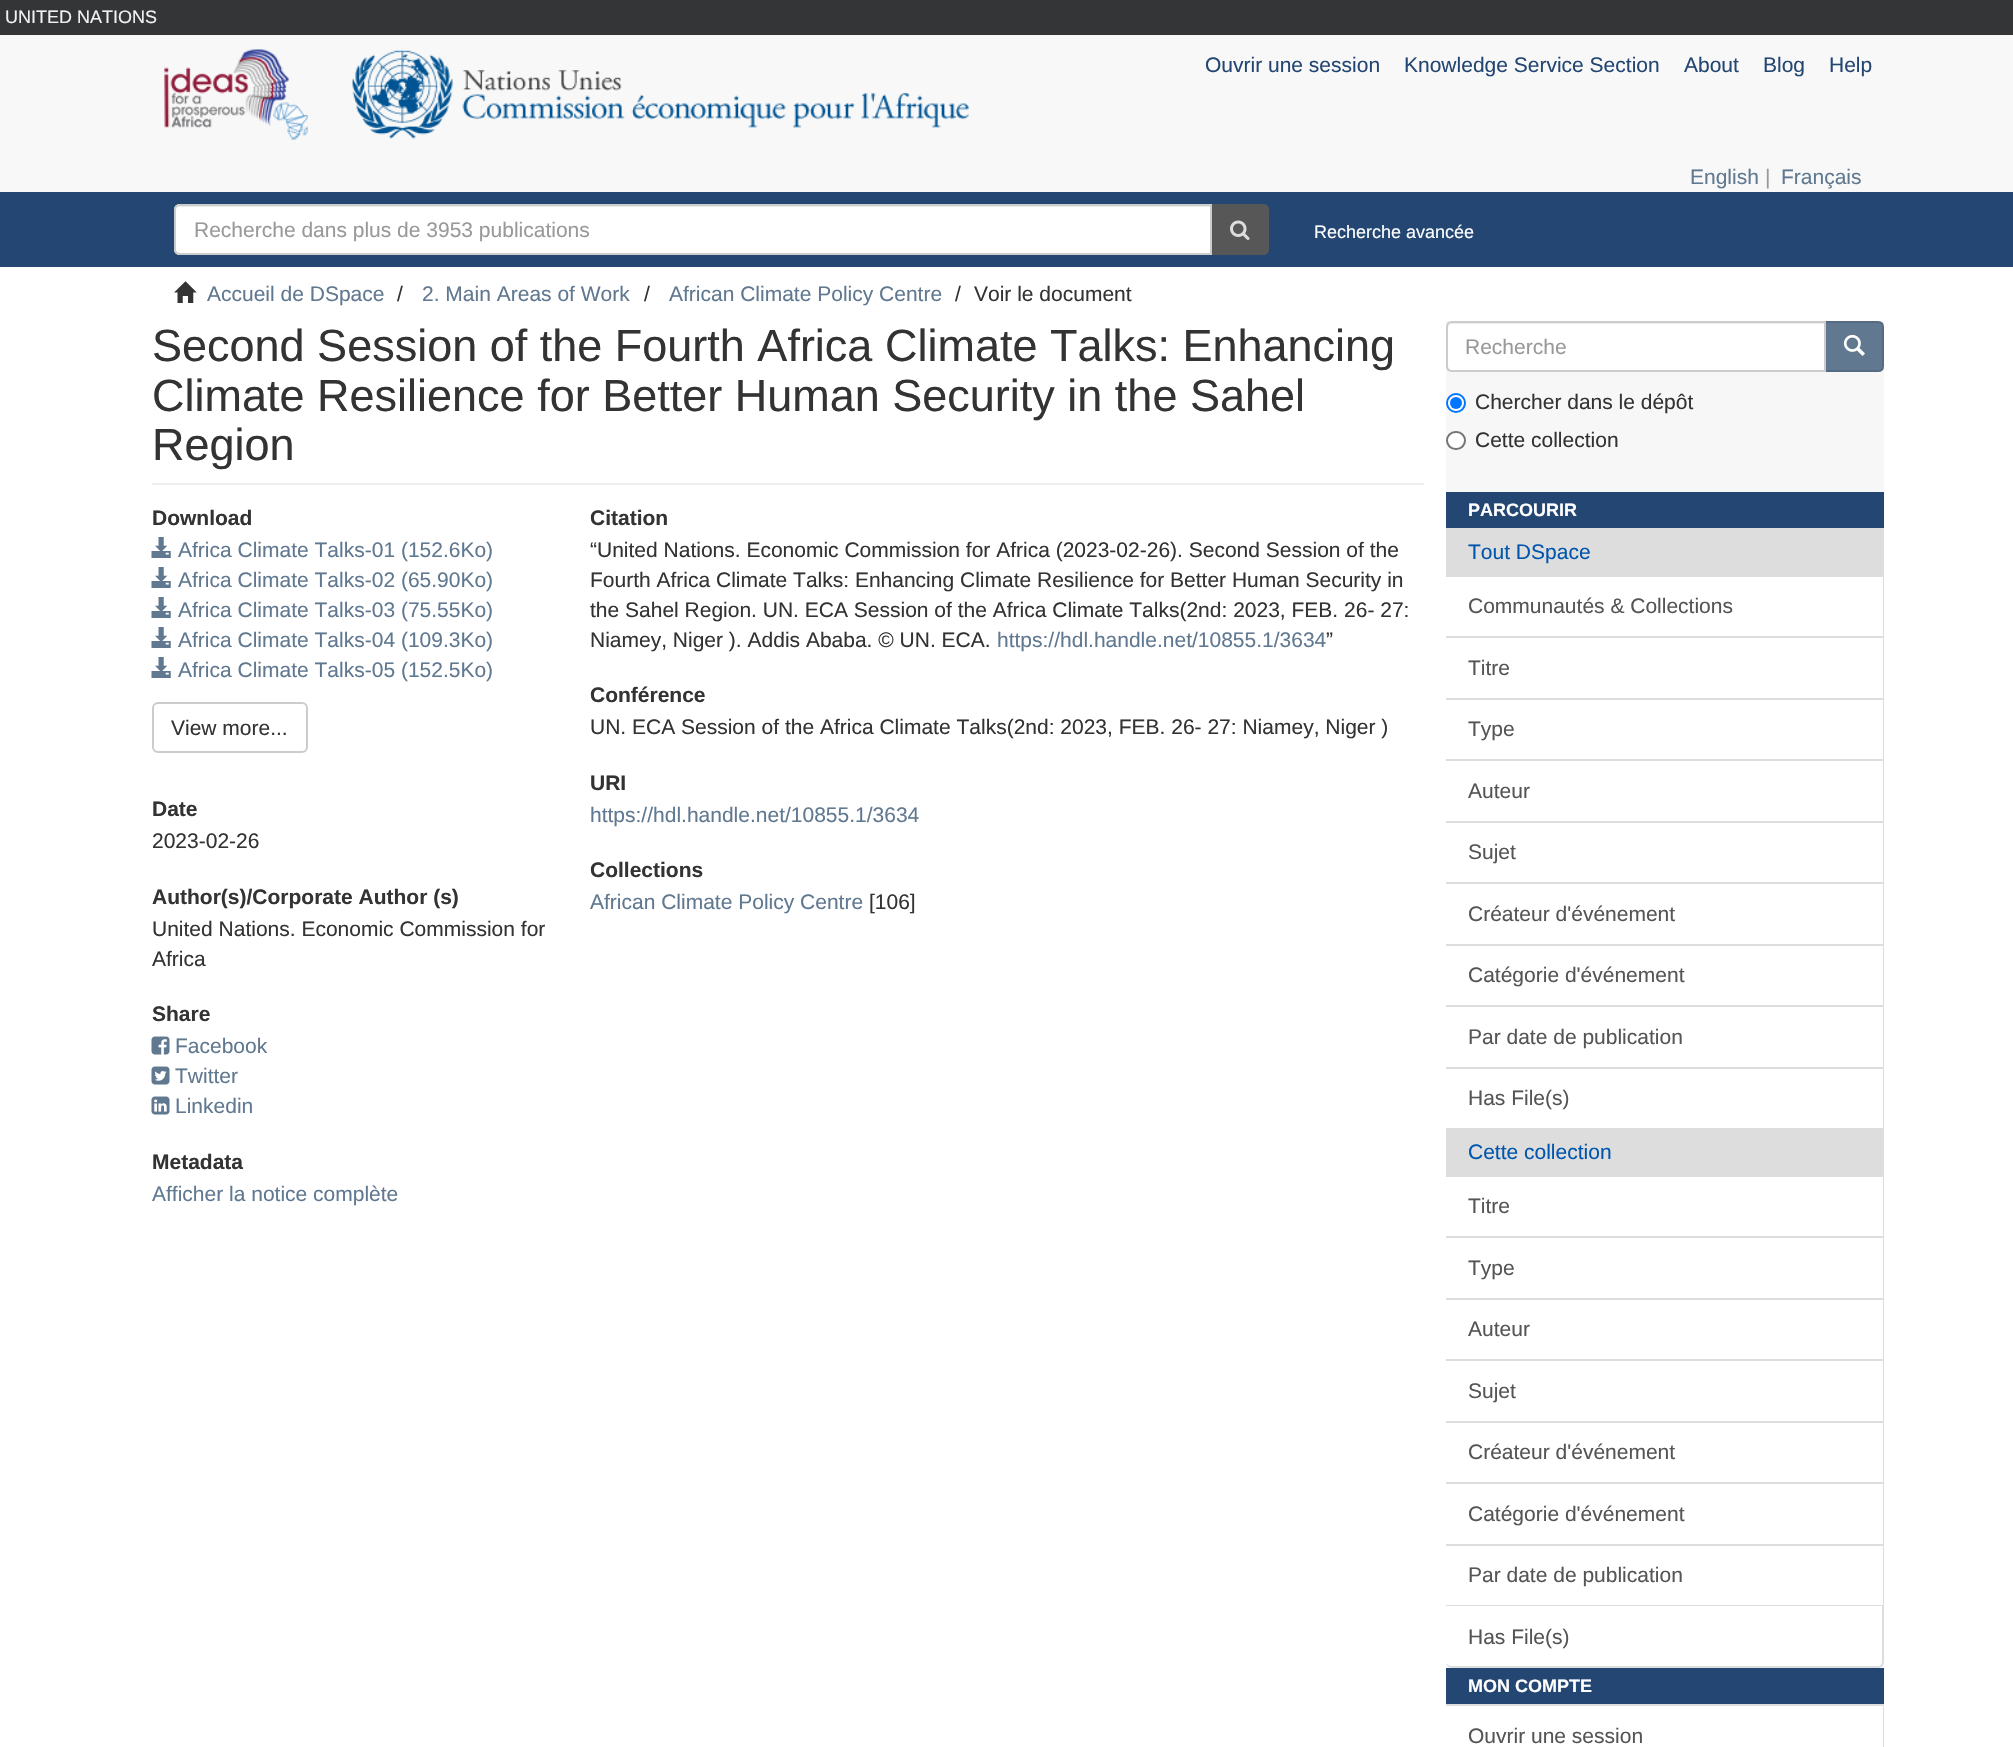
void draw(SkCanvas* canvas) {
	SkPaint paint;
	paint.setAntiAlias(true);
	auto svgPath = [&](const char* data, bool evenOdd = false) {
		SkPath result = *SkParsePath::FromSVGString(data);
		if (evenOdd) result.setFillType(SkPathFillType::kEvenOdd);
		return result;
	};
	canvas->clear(0xffffffff);
	paint.setColor(0xff343537);
	canvas->drawRect(SkRect::MakeXYWH(0, 0, 2013, 35), paint);
	SkFont f1(fontMgr->matchFamilyStyle("Liberation Sans", SkFontStyle::Normal()), 18);
	f1.setSubpixel(true);
	paint.setColor(0xfff1f1f1);
	canvas->drawString("UNITED NATIONS", 5, 23, f1, paint);
	paint.setColor(0xfff8f8f8);
	canvas->drawRect(SkRect::MakeXYWH(0, 35, 2013, 157), paint);
	canvas->drawImageRect(SkImages::DeferredFromEncodedData(SkData::MakeFromFileName("img1.png")), SkRect::MakeXYWH(164, 49, 805, 91), SkSamplingOptions());
	SkFont f2(fontMgr->matchFamilyStyle("Liberation Sans", SkFontStyle::Normal()), 21);
	f2.setSubpixel(true);
	paint.setColor(0xff234672);
	canvas->drawString("Ouvrir une session", 1205, 72, f2, paint);
	canvas->drawString("Knowledge Service Section", 1404, 72, f2, paint);
	canvas->drawString("About", 1684, 72, f2, paint);
	canvas->drawString("Blog", 1763, 72, f2, paint);
	canvas->drawString("Help", 1829, 72, f2, paint);
	paint.setColor(0xff607890);
	canvas->drawString("English", 1690, 184, f2, paint);
	paint.setColor(0xff999999);
	canvas->drawString("|", 1765, 184, f2, paint);
	paint.setColor(0xff607890);
	canvas->drawString("Français", 1781, 184, f2, paint);
	paint.setColor(0xff234672);
	canvas->drawRect(SkRect::MakeXYWH(0, 192, 2013, 75), paint);
	paint.setColor(0xff575757);
	canvas->drawPath(svgPath("M1212 205H1263C1266 205 1268 207 1268 210V249C1268 252 1266 254 1263 254H1212Z"), paint);
	paint.setStroke(true);
	paint.setStrokeWidth(2);
	canvas->drawPath(svgPath("M1212 205H1263C1266 205 1268 207 1268 210V249C1268 252 1266 254 1263 254H1212Z"), paint);
	paint.setStroke(false);
	paint.setColor(0xffffffff);
	canvas->drawPath(svgPath("M180 204H1212V255H180C176.5 255 174 252.5 174 249V210C174 206.5 176.5 204 180 204Z"), paint);
	paint.setColor(0xffececec);
	canvas->drawPath(svgPath("M180 207H1210V254H1211V206H181C178 206 176 209 176 212C176 209 178 207 180 207Z"), paint);
	paint.setStroke(true);
	paint.setColor(0xffcccccc);
	canvas->drawPath(svgPath("M180 205H1211V254H180C177 254 175 252 175 249V210C175 207 177 205 180 205Z"), paint);
	paint.setStroke(false);
	paint.setColor(0xff999999);
	canvas->drawString("Recherche dans plus de 3953 publications", 194, 237, f2, paint);
	canvas->drawImageRect(SkImages::DeferredFromEncodedData(SkData::MakeFromFileName("img2.png")), SkRect::MakeXYWH(1230, 220, 20, 20), SkSamplingOptions());
	paint.setColor(0xffffffff);
	canvas->drawString("Recherche avancée", 1314, 238, f1, paint);
	canvas->drawImageRect(SkImages::DeferredFromEncodedData(SkData::MakeFromFileName("img3.png")), SkRect::MakeXYWH(174, 281, 23, 22), SkSamplingOptions());
	paint.setColor(0xff607890);
	canvas->drawString("Accueil de DSpace", 207, 301, f2, paint);
	paint.setColor(0xff333333);
	canvas->drawString("/", 397, 301, f2, paint);
	paint.setColor(0xff607890);
	canvas->drawString("2. Main Areas of Work", 422, 301, f2, paint);
	paint.setColor(0xff333333);
	canvas->drawString("/", 644, 301, f2, paint);
	paint.setColor(0xff607890);
	canvas->drawString("African Climate Policy Centre", 669, 301, f2, paint);
	paint.setColor(0xff333333);
	canvas->drawString("/", 955, 301, f2, paint);
	canvas->drawString("Voir le document", 974, 301, f2, paint);
	paint.setColor(0xfff7f7f7);
	canvas->drawRect(SkRect::MakeXYWH(1446, 321, 438, 1347), paint);
	paint.setColor(0xffeeeeee);
	canvas->drawRect(SkRect::MakeXYWH(152, 483, 1272, 2), paint);
	SkFont f3(fontMgr->matchFamilyStyle("Liberation Sans", SkFontStyle::Normal()), 45);
	f3.setSubpixel(true);
	paint.setColor(0xff333333);
	canvas->drawString("Second Session of the Fourth Africa Climate Talks: Enhancing", 152, 361, f3, paint);
	canvas->drawString("Climate Resilience for Better Human Security in the Sahel", 152, 411, f3, paint);
	canvas->drawString("Region", 152, 460, f3, paint);
	SkFont f4(fontMgr->matchFamilyStyle("Liberation Sans", SkFontStyle::Bold()), 21);
	f4.setSubpixel(true);
	canvas->drawString("Download", 152, 525, f4, paint);
	canvas->drawImageRect(SkImages::DeferredFromEncodedData(SkData::MakeFromFileName("img4.png")), SkRect::MakeXYWH(151, 537, 20, 21), SkSamplingOptions());
	paint.setColor(0xff607890);
	canvas->drawString("Africa Climate Talks-01 (152.6Ko)", 178, 557, f2, paint);
	canvas->drawImageRect(SkImages::DeferredFromEncodedData(SkData::MakeFromFileName("img4.png")), SkRect::MakeXYWH(151, 567, 20, 21), SkSamplingOptions());
	canvas->drawString("Africa Climate Talks-02 (65.90Ko)", 178, 587, f2, paint);
	canvas->drawImageRect(SkImages::DeferredFromEncodedData(SkData::MakeFromFileName("img4.png")), SkRect::MakeXYWH(151, 597, 20, 21), SkSamplingOptions());
	canvas->drawString("Africa Climate Talks-03 (75.55Ko)", 178, 617, f2, paint);
	canvas->drawImageRect(SkImages::DeferredFromEncodedData(SkData::MakeFromFileName("img4.png")), SkRect::MakeXYWH(151, 627, 20, 21), SkSamplingOptions());
	canvas->drawString("Africa Climate Talks-04 (109.3Ko)", 178, 647, f2, paint);
	canvas->drawImageRect(SkImages::DeferredFromEncodedData(SkData::MakeFromFileName("img4.png")), SkRect::MakeXYWH(151, 657, 20, 21), SkSamplingOptions());
	canvas->drawString("Africa Climate Talks-05 (152.5Ko)", 178, 677, f2, paint);
	paint.setStroke(true);
	paint.setColor(0xffcccccc);
	canvas->drawRoundRect(SkRect::MakeXYWH(153, 703, 154, 49), 5, 5, paint);
	paint.setStroke(false);
	paint.setColor(0xff333333);
	canvas->drawString("View more...", 171, 735, f2, paint);
	canvas->drawString("Date", 152, 816, f4, paint);
	canvas->drawString("2023-02-26", 152, 848, f2, paint);
	canvas->drawString("Author(s)/Corporate Author (s)", 152, 904, f4, paint);
	canvas->drawString("United Nations. Economic Commission for", 152, 936, f2, paint);
	canvas->drawString("Africa", 152, 966, f2, paint);
	canvas->drawString("Share", 152, 1021, f4, paint);
	canvas->drawImageRect(SkImages::DeferredFromEncodedData(SkData::MakeFromFileName("img5.png")), SkRect::MakeXYWH(151, 1036, 19, 19), SkSamplingOptions());
	paint.setColor(0xff607890);
	canvas->drawString("Facebook", 175, 1053, f2, paint);
	canvas->drawImageRect(SkImages::DeferredFromEncodedData(SkData::MakeFromFileName("img6.png")), SkRect::MakeXYWH(151, 1066, 19, 19), SkSamplingOptions());
	canvas->drawString("Twitter", 175, 1083, f2, paint);
	canvas->drawImageRect(SkImages::DeferredFromEncodedData(SkData::MakeFromFileName("img7.png")), SkRect::MakeXYWH(151, 1096, 19, 19), SkSamplingOptions());
	canvas->drawString("Linkedin", 175, 1113, f2, paint);
	paint.setColor(0xff333333);
	canvas->drawString("Metadata", 152, 1169, f4, paint);
	paint.setColor(0xff607890);
	canvas->drawString("Afficher la notice complète", 152, 1201, f2, paint);
	paint.setColor(0xff333333);
	canvas->drawString("Citation", 590, 525, f4, paint);
	canvas->drawString("“United Nations. Economic Commission for Africa (2023-02-26). Second Session of the", 590, 557, f2, paint);
	canvas->drawString("Fourth Africa Climate Talks: Enhancing Climate Resilience for Better Human Security in", 590, 587, f2, paint);
	canvas->drawString("the Sahel Region. UN. ECA Session of the Africa Climate Talks(2nd: 2023, FEB. 26- 27:", 590, 617, f2, paint);
	canvas->drawString("Niamey, Niger ). Addis Ababa. © UN. ECA.", 590, 647, f2, paint);
	paint.setColor(0xff607890);
	canvas->drawString("https://hdl.handle.net/10855.1/3634", 997, 647, f2, paint);
	paint.setColor(0xff333333);
	canvas->drawString("”", 1326, 647, f2, paint);
	canvas->drawString("Conférence", 590, 702, f4, paint);
	canvas->drawString("UN. ECA Session of the Africa Climate Talks(2nd: 2023, FEB. 26- 27: Niamey, Niger )", 590, 734, f2, paint);
	canvas->drawString("URI", 590, 790, f4, paint);
	paint.setColor(0xff607890);
	canvas->drawString("https://hdl.handle.net/10855.1/3634", 590, 822, f2, paint);
	paint.setColor(0xff333333);
	canvas->drawString("Collections", 590, 877, f4, paint);
	paint.setColor(0xff607890);
	canvas->drawString("African Climate Policy Centre", 590, 909, f2, paint);
	paint.setColor(0xff333333);
	canvas->drawString("[106]", 869, 909, f2, paint);
	paint.setColor(0xff607890);
	canvas->drawPath(svgPath("M1825 322H1878C1881 322 1883 324 1883 327V366C1883 369 1881 371 1878 371H1825Z"), paint);
	paint.setStroke(true);
	paint.setColor(0xff566b81);
	canvas->drawPath(svgPath("M1825 322H1878C1881 322 1883 324 1883 327V366C1883 369 1881 371 1878 371H1825Z"), paint);
	paint.setStroke(false);
	paint.setColor(0xffffffff);
	canvas->drawPath(svgPath("M1452 321H1826V372H1452C1448.5 372 1446 369.5 1446 366V327C1446 323.5 1448.5 321 1452 321Z"), paint);
	paint.setColor(0xffececec);
	canvas->drawPath(svgPath("M1452 324H1824V323H1453C1450 323 1448 325 1448 328C1448 326 1450 324 1452 324Z"), paint);
	paint.setStroke(true);
	paint.setColor(0xffcccccc);
	canvas->drawPath(svgPath("M1452 322H1825V371H1452C1449 371 1447 369 1447 366V327C1447 324 1449 322 1452 322Z"), paint);
	paint.setStroke(false);
	paint.setColor(0xff999999);
	canvas->drawString("Recherche", 1465, 354, f2, paint);
	canvas->drawImageRect(SkImages::DeferredFromEncodedData(SkData::MakeFromFileName("img8.png")), SkRect::MakeXYWH(1843, 334, 22, 22), SkSamplingOptions());
	paint.setColor(0xffffffff);
	canvas->drawCircle(1456, 403, 9, paint);
	paint.setStroke(true);
	paint.setColor(0xff0075ff);
	canvas->drawCircle(1456, 403, 9, paint);
	paint.setStroke(false);
	canvas->drawCircle(1456, 403, 6, paint);
	paint.setColor(0xff333333);
	canvas->drawString("Chercher dans le dépôt", 1475, 409, f2, paint);
	paint.setColor(0xffffffff);
	canvas->drawRoundRect(SkRect::MakeXYWH(1447, 432, 18, 17), 8.5, 8.5, paint);
	paint.setStroke(true);
	paint.setColor(0xff767676);
	canvas->drawRoundRect(SkRect::MakeXYWH(1447, 432, 18, 17), 8.5, 8.5, paint);
	paint.setStroke(false);
	paint.setColor(0xff333333);
	canvas->drawString("Cette collection", 1475, 447, f2, paint);
	paint.setColor(0xff234672);
	canvas->drawRect(SkRect::MakeXYWH(1446, 492, 438, 36), paint);
	SkFont f5(fontMgr->matchFamilyStyle("Liberation Sans", SkFontStyle::Bold()), 18);
	f5.setSubpixel(true);
	paint.setColor(0xffffffff);
	canvas->drawString("PARCOURIR", 1468, 516, f5, paint);
	paint.setColor(0xffdddddd);
	canvas->drawRect(SkRect::MakeXYWH(1446, 576, 438, 1), paint);
	canvas->drawRect(SkRect::MakeXYWH(1883, 575, 1, 63), paint);
	canvas->drawRect(SkRect::MakeXYWH(1446, 528, 438, 48), paint);
	paint.setColor(0xff0055ac);
	canvas->drawString("Tout DSpace", 1468, 559, f2, paint);
	paint.setColor(0xffffffff);
	canvas->drawRect(SkRect::MakeXYWH(1446, 577, 437, 59), paint);
	paint.setColor(0xff555555);
	canvas->drawString("Communautés & Collections", 1468, 613, f2, paint);
	paint.setColor(0xffffffff);
	canvas->drawRect(SkRect::MakeXYWH(1446, 638, 437, 60), paint);
	paint.setColor(0xffdddddd);
	canvas->drawRect(SkRect::MakeXYWH(1446, 636, 438, 2), paint);
	canvas->drawRect(SkRect::MakeXYWH(1883, 636, 1, 63), paint);
	paint.setColor(0xff555555);
	canvas->drawString("Titre", 1468, 675, f2, paint);
	paint.setColor(0xffffffff);
	canvas->drawRect(SkRect::MakeXYWH(1446, 700, 437, 59), paint);
	paint.setColor(0xffdddddd);
	canvas->drawRect(SkRect::MakeXYWH(1446, 698, 438, 2), paint);
	canvas->drawRect(SkRect::MakeXYWH(1883, 698, 1, 63), paint);
	paint.setColor(0xff555555);
	canvas->drawString("Type", 1468, 736, f2, paint);
	paint.setColor(0xffffffff);
	canvas->drawRect(SkRect::MakeXYWH(1446, 761, 437, 60), paint);
	paint.setColor(0xffdddddd);
	canvas->drawRect(SkRect::MakeXYWH(1446, 759, 438, 2), paint);
	canvas->drawRect(SkRect::MakeXYWH(1883, 759, 1, 63), paint);
	paint.setColor(0xff555555);
	canvas->drawString("Auteur", 1468, 798, f2, paint);
	paint.setColor(0xffffffff);
	canvas->drawRect(SkRect::MakeXYWH(1446, 823, 437, 59), paint);
	paint.setColor(0xffdddddd);
	canvas->drawRect(SkRect::MakeXYWH(1446, 821, 438, 2), paint);
	canvas->drawRect(SkRect::MakeXYWH(1883, 821, 1, 63), paint);
	paint.setColor(0xff555555);
	canvas->drawString("Sujet", 1468, 859, f2, paint);
	paint.setColor(0xffffffff);
	canvas->drawRect(SkRect::MakeXYWH(1446, 884, 437, 60), paint);
	paint.setColor(0xffdddddd);
	canvas->drawRect(SkRect::MakeXYWH(1446, 882, 438, 2), paint);
	canvas->drawRect(SkRect::MakeXYWH(1883, 882, 1, 63), paint);
	paint.setColor(0xff555555);
	canvas->drawString("Créateur d'événement", 1468, 921, f2, paint);
	paint.setColor(0xffffffff);
	canvas->drawRect(SkRect::MakeXYWH(1446, 946, 437, 59), paint);
	paint.setColor(0xffdddddd);
	canvas->drawRect(SkRect::MakeXYWH(1446, 944, 438, 2), paint);
	canvas->drawRect(SkRect::MakeXYWH(1883, 944, 1, 63), paint);
	paint.setColor(0xff555555);
	canvas->drawString("Catégorie d'événement", 1468, 982, f2, paint);
	paint.setColor(0xffffffff);
	canvas->drawRect(SkRect::MakeXYWH(1446, 1007, 437, 60), paint);
	paint.setColor(0xffdddddd);
	canvas->drawRect(SkRect::MakeXYWH(1446, 1005, 438, 2), paint);
	canvas->drawRect(SkRect::MakeXYWH(1883, 1005, 1, 63), paint);
	paint.setColor(0xff555555);
	canvas->drawString("Par date de publication", 1468, 1044, f2, paint);
	paint.setColor(0xffffffff);
	canvas->drawRect(SkRect::MakeXYWH(1446, 1069, 437, 59), paint);
	paint.setColor(0xffdddddd);
	canvas->drawRect(SkRect::MakeXYWH(1446, 1067, 438, 2), paint);
	canvas->drawRect(SkRect::MakeXYWH(1883, 1067, 1, 63), paint);
	paint.setColor(0xff555555);
	canvas->drawString("Has File(s)", 1468, 1105, f2, paint);
	paint.setColor(0xffdddddd);
	canvas->drawRect(SkRect::MakeXYWH(1446, 1176, 438, 1), paint);
	canvas->drawRect(SkRect::MakeXYWH(1883, 1175, 1, 63), paint);
	canvas->drawRect(SkRect::MakeXYWH(1446, 1128, 438, 48), paint);
	paint.setColor(0xff0055ac);
	canvas->drawString("Cette collection", 1468, 1159, f2, paint);
	paint.setColor(0xffffffff);
	canvas->drawRect(SkRect::MakeXYWH(1446, 1177, 437, 59), paint);
	paint.setColor(0xff555555);
	canvas->drawString("Titre", 1468, 1213, f2, paint);
	paint.setColor(0xffffffff);
	canvas->drawRect(SkRect::MakeXYWH(1446, 1238, 437, 60), paint);
	paint.setColor(0xffdddddd);
	canvas->drawRect(SkRect::MakeXYWH(1446, 1236, 438, 2), paint);
	canvas->drawRect(SkRect::MakeXYWH(1883, 1236, 1, 63), paint);
	paint.setColor(0xff555555);
	canvas->drawString("Type", 1468, 1275, f2, paint);
	paint.setColor(0xffffffff);
	canvas->drawRect(SkRect::MakeXYWH(1446, 1300, 437, 59), paint);
	paint.setColor(0xffdddddd);
	canvas->drawRect(SkRect::MakeXYWH(1446, 1298, 438, 2), paint);
	canvas->drawRect(SkRect::MakeXYWH(1883, 1298, 1, 63), paint);
	paint.setColor(0xff555555);
	canvas->drawString("Auteur", 1468, 1336, f2, paint);
	paint.setColor(0xffffffff);
	canvas->drawRect(SkRect::MakeXYWH(1446, 1361, 437, 60), paint);
	paint.setColor(0xffdddddd);
	canvas->drawRect(SkRect::MakeXYWH(1446, 1359, 438, 2), paint);
	canvas->drawRect(SkRect::MakeXYWH(1883, 1359, 1, 63), paint);
	paint.setColor(0xff555555);
	canvas->drawString("Sujet", 1468, 1398, f2, paint);
	paint.setColor(0xffffffff);
	canvas->drawRect(SkRect::MakeXYWH(1446, 1423, 437, 59), paint);
	paint.setColor(0xffdddddd);
	canvas->drawRect(SkRect::MakeXYWH(1446, 1421, 438, 2), paint);
	canvas->drawRect(SkRect::MakeXYWH(1883, 1421, 1, 63), paint);
	paint.setColor(0xff555555);
	canvas->drawString("Créateur d'événement", 1468, 1459, f2, paint);
	paint.setColor(0xffffffff);
	canvas->drawRect(SkRect::MakeXYWH(1446, 1484, 437, 60), paint);
	paint.setColor(0xffdddddd);
	canvas->drawRect(SkRect::MakeXYWH(1446, 1482, 438, 2), paint);
	canvas->drawRect(SkRect::MakeXYWH(1883, 1482, 1, 63), paint);
	paint.setColor(0xff555555);
	canvas->drawString("Catégorie d'événement", 1468, 1521, f2, paint);
	paint.setColor(0xffffffff);
	canvas->drawRect(SkRect::MakeXYWH(1446, 1546, 437, 59), paint);
	paint.setColor(0xffdddddd);
	canvas->drawRect(SkRect::MakeXYWH(1446, 1544, 438, 2), paint);
	canvas->drawRect(SkRect::MakeXYWH(1883, 1544, 1, 63), paint);
	paint.setColor(0xff555555);
	canvas->drawString("Par date de publication", 1468, 1582, f2, paint);
	paint.setColor(0xffffffff);
	canvas->drawPath(svgPath("M1446 1605H1884V1662C1884 1665.5 1881.5 1668 1878 1668H1452C1448.5 1668 1446 1665.5 1446 1662Z"), paint);
	paint.setColor(0xffdddddd);
	canvas->drawPath(svgPath("M1446 1605H1884V1662C1884 1665 1881 1668 1878 1668H1452C1449 1668 1446 1665 1446 1662ZM1446 1606H1882V1662C1882 1664 1880 1666 1878 1666H1452C1449 1666 1446 1664 1446 1662Z", true), paint);
	paint.setColor(0xff555555);
	canvas->drawString("Has File(s)", 1468, 1644, f2, paint);
	paint.setColor(0xff234672);
	canvas->drawRect(SkRect::MakeXYWH(1446, 1668, 438, 36), paint);
	paint.setColor(0xffffffff);
	canvas->drawString("MON COMPTE", 1468, 1692, f5, paint);
	paint.setColor(0xffdddddd);
	canvas->drawRect(SkRect::MakeXYWH(1446, 1704, 438, 2), paint);
	canvas->drawRect(SkRect::MakeXYWH(1883, 1704, 1, 43), paint);
	paint.setColor(0xff555555);
	canvas->drawString("Ouvrir une session", 1468, 1743, f2, paint);
}
